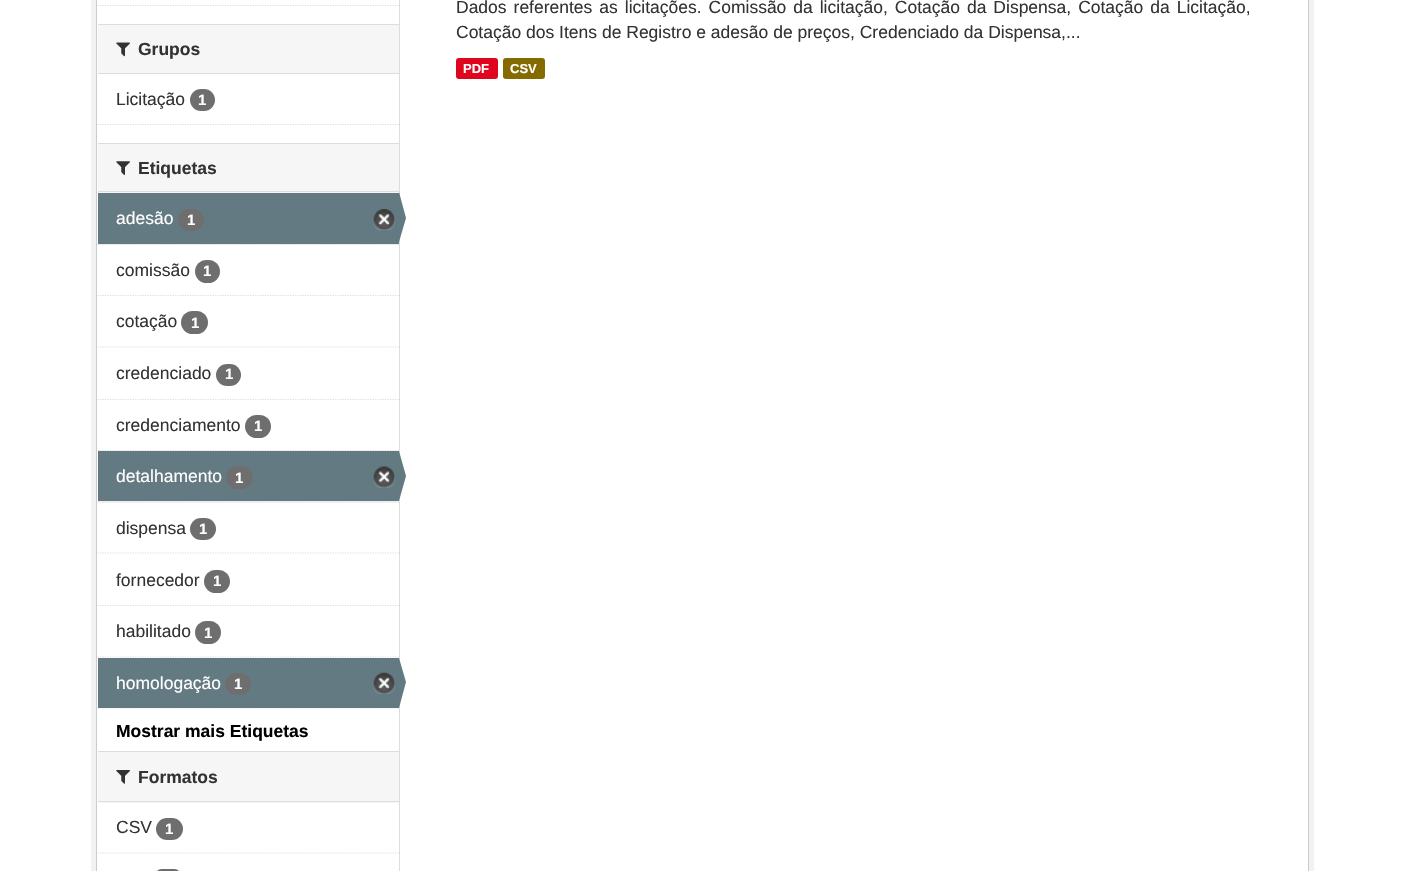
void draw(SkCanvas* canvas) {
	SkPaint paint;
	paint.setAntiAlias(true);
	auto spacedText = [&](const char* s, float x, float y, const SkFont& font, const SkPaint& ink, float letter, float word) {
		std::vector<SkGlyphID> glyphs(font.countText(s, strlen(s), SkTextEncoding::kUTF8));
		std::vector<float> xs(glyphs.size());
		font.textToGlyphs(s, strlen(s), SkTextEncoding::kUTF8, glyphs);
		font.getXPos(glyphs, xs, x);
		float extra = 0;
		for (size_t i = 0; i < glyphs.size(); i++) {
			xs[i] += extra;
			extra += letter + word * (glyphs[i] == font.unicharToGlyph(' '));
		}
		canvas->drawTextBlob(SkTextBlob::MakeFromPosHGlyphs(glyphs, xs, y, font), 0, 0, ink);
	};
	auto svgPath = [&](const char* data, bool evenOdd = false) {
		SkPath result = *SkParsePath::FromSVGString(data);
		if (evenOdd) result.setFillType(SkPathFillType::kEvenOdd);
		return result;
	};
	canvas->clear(0xffffffff);
	paint.setStroke(true);
	paint.setStrokeWidth(5);
	paint.setColor(0xfff2f2f2);
	canvas->drawRect(SkRect::MakeXYWH(93.5, -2.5, 1218, 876), paint);
	paint.setStrokeWidth(1);
	paint.setColor(0xffcccccc);
	canvas->drawRect(SkRect::MakeXYWH(96.5, -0.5, 1212, 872), paint);
	paint.setStrokeWidth(1.2);
	paint.setColor(0xffdddddd);
	paint.setPathEffect(SkDashPathEffect::Make({{1.25f, 1.25f}}, 0));
	canvas->drawPath(svgPath("M97.5 5.5H399"), paint);
	paint.setPathEffect(nullptr);
	paint.setStroke(false);
	paint.setColor(0xfff6f6f6);
	canvas->drawRect(SkRect::MakeXYWH(98, 25, 301, 48), paint);
	paint.setColor(0xffdddddd);
	canvas->drawRect(SkRect::MakeXYWH(98, 24, 301, 1), paint);
	canvas->drawRect(SkRect::MakeXYWH(98, 73, 301, 1), paint);
	canvas->drawImageRect(SkImages::DeferredFromEncodedData(SkData::MakeFromFileName("img1.png")), SkRect::MakeXYWH(116, 42, 14, 15), SkSamplingOptions());
	SkFont f1(fontMgr->matchFamilyStyle("Liberation Sans", SkFontStyle::Bold()), 17.5);
	f1.setSubpixel(true);
	paint.setColor(0xff333333);
	canvas->drawString("Grupos", 138, 55, f1, paint);
	SkFont f2(fontMgr->matchFamilyStyle("Liberation Sans", SkFontStyle::Normal()), 17.5);
	f2.setSubpixel(true);
	canvas->drawString("Licitação", 116, 105, f2, paint);
	paint.setColor(0xff6e6e6e);
	canvas->drawRoundRect(SkRect::MakeXYWH(190, 89, 25, 22), 11, 11, paint);
	SkFont f3(fontMgr->matchFamilyStyle("Liberation Sans", SkFontStyle::Bold()), 15);
	f3.setSubpixel(true);
	paint.setColor(0xffffffff);
	canvas->drawString("1", 198, 105, f3, paint);
	paint.setStroke(true);
	paint.setColor(0xffdddddd);
	paint.setPathEffect(SkDashPathEffect::Make({{1.25f, 1.25f}}, 0));
	canvas->drawPath(svgPath("M97.5 124.5H399"), paint);
	paint.setPathEffect(nullptr);
	paint.setStroke(false);
	paint.setColor(0xfff6f6f6);
	canvas->drawRect(SkRect::MakeXYWH(98, 144, 301, 49), paint);
	paint.setColor(0xffdddddd);
	canvas->drawRect(SkRect::MakeXYWH(98, 143, 301, 1), paint);
	canvas->drawRect(SkRect::MakeXYWH(98, 191, 301, 1), paint);
	canvas->drawImageRect(SkImages::DeferredFromEncodedData(SkData::MakeFromFileName("img2.png")), SkRect::MakeXYWH(116, 161, 14, 14), SkSamplingOptions());
	paint.setColor(0xff333333);
	canvas->drawString("Etiquetas", 138, 174, f1, paint);
	paint.setColor(0xfff6f6f6);
	canvas->drawRect(SkRect::MakeXYWH(98, 244, 301, 1), paint);
	paint.setStroke(true);
	paint.setColor(0xffdddddd);
	paint.setPathEffect(SkDashPathEffect::Make({{1.25f, 1.25f}}, 0));
	canvas->drawPath(svgPath("M97.5 244.5H399"), paint);
	paint.setPathEffect(nullptr);
	paint.setStroke(false);
	paint.setColor(0xff647a82);
	canvas->drawRect(SkRect::MakeXYWH(98, 193, 301, 51), paint);
	paint.setColor(0xffffffff);
	canvas->drawString("adesão", 116, 224, f2, paint);
	paint.setColor(0xff6e6e6e);
	canvas->drawRoundRect(SkRect::MakeXYWH(178, 209, 26, 22), 11, 11, paint);
	paint.setColor(0xffffffff);
	canvas->drawString("1", 187, 225, f3, paint);
	canvas->drawImageRect(SkImages::DeferredFromEncodedData(SkData::MakeFromFileName("img3.png")), SkRect::MakeXYWH(373, 209, 22, 22), SkSamplingOptions());
	paint.setColor(0xffdddddd);
	canvas->drawRect(SkRect::MakeXYWH(399, 0, 1, 871), paint);
	paint.setColor(0xff647a82);
	canvas->drawPath(svgPath("M399 242V192L406 218Z"), paint);
	paint.setStroke(true);
	paint.setColor(0xffdddddd);
	paint.setPathEffect(SkDashPathEffect::Make({{1.25f, 1.25f}}, 0));
	canvas->drawPath(svgPath("M97.5 295.5H399"), paint);
	paint.setPathEffect(nullptr);
	paint.setStroke(false);
	paint.setColor(0xff333333);
	canvas->drawString("comissão", 116, 276, f2, paint);
	paint.setColor(0xff6e6e6e);
	canvas->drawRoundRect(SkRect::MakeXYWH(195, 260, 25, 23), 11.5, 11.5, paint);
	paint.setColor(0xffffffff);
	canvas->drawString("1", 203, 276, f3, paint);
	paint.setStroke(true);
	paint.setColor(0xffdddddd);
	paint.setPathEffect(SkDashPathEffect::Make({{1.25f, 1.25f}}, 0));
	canvas->drawPath(svgPath("M97.5 347H399"), paint);
	paint.setPathEffect(nullptr);
	paint.setStroke(false);
	paint.setColor(0xff333333);
	canvas->drawString("cotação", 116, 327, f2, paint);
	paint.setColor(0xff6e6e6e);
	canvas->drawRoundRect(SkRect::MakeXYWH(181, 311, 27, 23), 11.5, 11.5, paint);
	paint.setColor(0xffffffff);
	canvas->drawString("1", 191, 328, f3, paint);
	paint.setStroke(true);
	paint.setColor(0xffdddddd);
	paint.setPathEffect(SkDashPathEffect::Make({{1.25f, 1.25f}}, 0));
	canvas->drawPath(svgPath("M97.5 399.5H399"), paint);
	paint.setPathEffect(nullptr);
	paint.setStroke(false);
	paint.setColor(0xff333333);
	canvas->drawString("credenciado", 116, 379, f2, paint);
	paint.setColor(0xff6e6e6e);
	canvas->drawRoundRect(SkRect::MakeXYWH(216, 364, 25, 22), 11, 11, paint);
	paint.setColor(0xffffffff);
	canvas->drawString("1", 225, 379, f3, paint);
	paint.setStroke(true);
	paint.setColor(0xffdddddd);
	paint.setPathEffect(SkDashPathEffect::Make({{1.25f, 1.25f}}, 0));
	canvas->drawPath(svgPath("M97.5 450.5H399"), paint);
	paint.setPathEffect(nullptr);
	paint.setStroke(false);
	paint.setColor(0xff333333);
	canvas->drawString("credenciamento", 116, 431, f2, paint);
	paint.setColor(0xff6e6e6e);
	canvas->drawRoundRect(SkRect::MakeXYWH(245, 415, 26, 23), 11.5, 11.5, paint);
	paint.setColor(0xffffffff);
	canvas->drawString("1", 254, 431, f3, paint);
	paint.setColor(0xfff6f6f6);
	canvas->drawRect(SkRect::MakeXYWH(98, 501, 301, 2), paint);
	paint.setStroke(true);
	paint.setColor(0xffdddddd);
	paint.setPathEffect(SkDashPathEffect::Make({{1.25f, 1.25f}}, 0));
	canvas->drawPath(svgPath("M97.5 502H399"), paint);
	paint.setPathEffect(nullptr);
	paint.setStroke(false);
	paint.setColor(0xff647a82);
	canvas->drawRect(SkRect::MakeXYWH(98, 451, 301, 50), paint);
	paint.setColor(0xffffffff);
	canvas->drawString("detalhamento", 116, 482, f2, paint);
	paint.setColor(0xff6e6e6e);
	canvas->drawRoundRect(SkRect::MakeXYWH(226, 466, 27, 23), 11.5, 11.5, paint);
	paint.setColor(0xffffffff);
	canvas->drawString("1", 235, 483, f3, paint);
	canvas->drawImageRect(SkImages::DeferredFromEncodedData(SkData::MakeFromFileName("img4.png")), SkRect::MakeXYWH(373, 466, 22, 22), SkSamplingOptions());
	paint.setColor(0xff647a82);
	canvas->drawPath(svgPath("M399 501V451L406 476Z"), paint);
	paint.setStroke(true);
	paint.setColor(0xffdddddd);
	paint.setPathEffect(SkDashPathEffect::Make({{1.25f, 1.25f}}, 0));
	canvas->drawPath(svgPath("M97.5 553H399"), paint);
	paint.setPathEffect(nullptr);
	paint.setStroke(false);
	paint.setColor(0xff333333);
	canvas->drawString("dispensa", 116, 534, f2, paint);
	paint.setColor(0xff6e6e6e);
	canvas->drawRoundRect(SkRect::MakeXYWH(190, 518, 26, 22), 11, 11, paint);
	paint.setColor(0xffffffff);
	canvas->drawString("1", 199, 534, f3, paint);
	paint.setStroke(true);
	paint.setColor(0xffdddddd);
	paint.setPathEffect(SkDashPathEffect::Make({{1.25f, 1.25f}}, 0));
	canvas->drawPath(svgPath("M97.5 605.5H399"), paint);
	paint.setPathEffect(nullptr);
	paint.setStroke(false);
	paint.setColor(0xff333333);
	canvas->drawString("fornecedor", 116, 586, f2, paint);
	paint.setColor(0xff6e6e6e);
	canvas->drawRoundRect(SkRect::MakeXYWH(204, 570, 26, 23), 11.5, 11.5, paint);
	paint.setColor(0xffffffff);
	canvas->drawString("1", 213, 586, f3, paint);
	paint.setStroke(true);
	paint.setColor(0xffdddddd);
	paint.setPathEffect(SkDashPathEffect::Make({{1.25f, 1.25f}}, 0));
	canvas->drawPath(svgPath("M97.5 657H399"), paint);
	paint.setPathEffect(nullptr);
	paint.setStroke(false);
	paint.setColor(0xff333333);
	canvas->drawString("habilitado", 116, 637, f2, paint);
	paint.setColor(0xff6e6e6e);
	canvas->drawRoundRect(SkRect::MakeXYWH(195, 621, 26, 23), 11.5, 11.5, paint);
	paint.setColor(0xffffffff);
	canvas->drawString("1", 204, 638, f3, paint);
	paint.setStroke(true);
	paint.setColor(0xffdddddd);
	paint.setPathEffect(SkDashPathEffect::Make({{1.25f, 1.25f}}, 0));
	canvas->drawPath(svgPath("M97.5 708H399"), paint);
	paint.setPathEffect(nullptr);
	paint.setStroke(false);
	paint.setColor(0xff647a82);
	canvas->drawRect(SkRect::MakeXYWH(98, 658, 301, 50), paint);
	paint.setColor(0xffffffff);
	canvas->drawString("homologação", 116, 689, f2, paint);
	paint.setColor(0xff6e6e6e);
	canvas->drawRoundRect(SkRect::MakeXYWH(225, 673, 26, 22), 11, 11, paint);
	paint.setColor(0xffffffff);
	canvas->drawString("1", 234, 689, f3, paint);
	canvas->drawImageRect(SkImages::DeferredFromEncodedData(SkData::MakeFromFileName("img5.png")), SkRect::MakeXYWH(373, 672, 22, 22), SkSamplingOptions());
	paint.setColor(0xff647a82);
	canvas->drawPath(svgPath("M399 708V658L406 682Z"), paint);
	paint.setColor(0xff000000);
	canvas->drawString("Mostrar mais Etiquetas", 116, 737, f1, paint);
	paint.setColor(0xfff6f6f6);
	canvas->drawRect(SkRect::MakeXYWH(98, 752, 301, 51), paint);
	paint.setColor(0xffdddddd);
	canvas->drawRect(SkRect::MakeXYWH(98, 751, 301, 1), paint);
	canvas->drawRect(SkRect::MakeXYWH(98, 801, 301, 1), paint);
	canvas->drawImageRect(SkImages::DeferredFromEncodedData(SkData::MakeFromFileName("img6.png")), SkRect::MakeXYWH(116, 770, 14, 14), SkSamplingOptions());
	paint.setColor(0xff333333);
	canvas->drawString("Formatos", 138, 783, f1, paint);
	paint.setStroke(true);
	paint.setColor(0xffdddddd);
	paint.setPathEffect(SkDashPathEffect::Make({{1.25f, 1.25f}}, 0));
	canvas->drawPath(svgPath("M97.5 853H399"), paint);
	paint.setPathEffect(nullptr);
	paint.setStroke(false);
	paint.setColor(0xff333333);
	canvas->drawString("CSV", 116, 833, f2, paint);
	paint.setColor(0xff6e6e6e);
	canvas->drawRoundRect(SkRect::MakeXYWH(156, 818, 27, 22), 11, 11, paint);
	paint.setColor(0xffffffff);
	canvas->drawString("1", 165, 834, f3, paint);
	paint.setColor(0xff6e6e6e);
	canvas->drawRoundRect(SkRect::MakeXYWH(155, 869, 26, 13), 11, 11, paint);
	paint.setColor(0xff333333);
	spacedText("Dados referentes as licitações. Comissão da licitação, Cotação da Dispensa, Cotação da Licitação,", 456, 13, f2, paint, 0, 2.1);
	canvas->drawString("Cotação dos Itens de Registro e adesão de preços, Credenciado da Dispensa,...", 456, 38, f2, paint);
	paint.setColor(0xffe0051e);
	canvas->drawRoundRect(SkRect::MakeXYWH(456, 58, 42, 21), 3, 3, paint);
	SkFont f4(fontMgr->matchFamilyStyle("Liberation Sans", SkFontStyle::Bold()), 13);
	f4.setSubpixel(true);
	paint.setColor(0xffffffff);
	canvas->drawString("PDF", 463, 73, f4, paint);
	paint.setColor(0xff856a00);
	canvas->drawRoundRect(SkRect::MakeXYWH(503, 58, 42, 21), 3, 3, paint);
	paint.setColor(0xffffffff);
	canvas->drawString("CSV", 510, 73, f4, paint);
}
